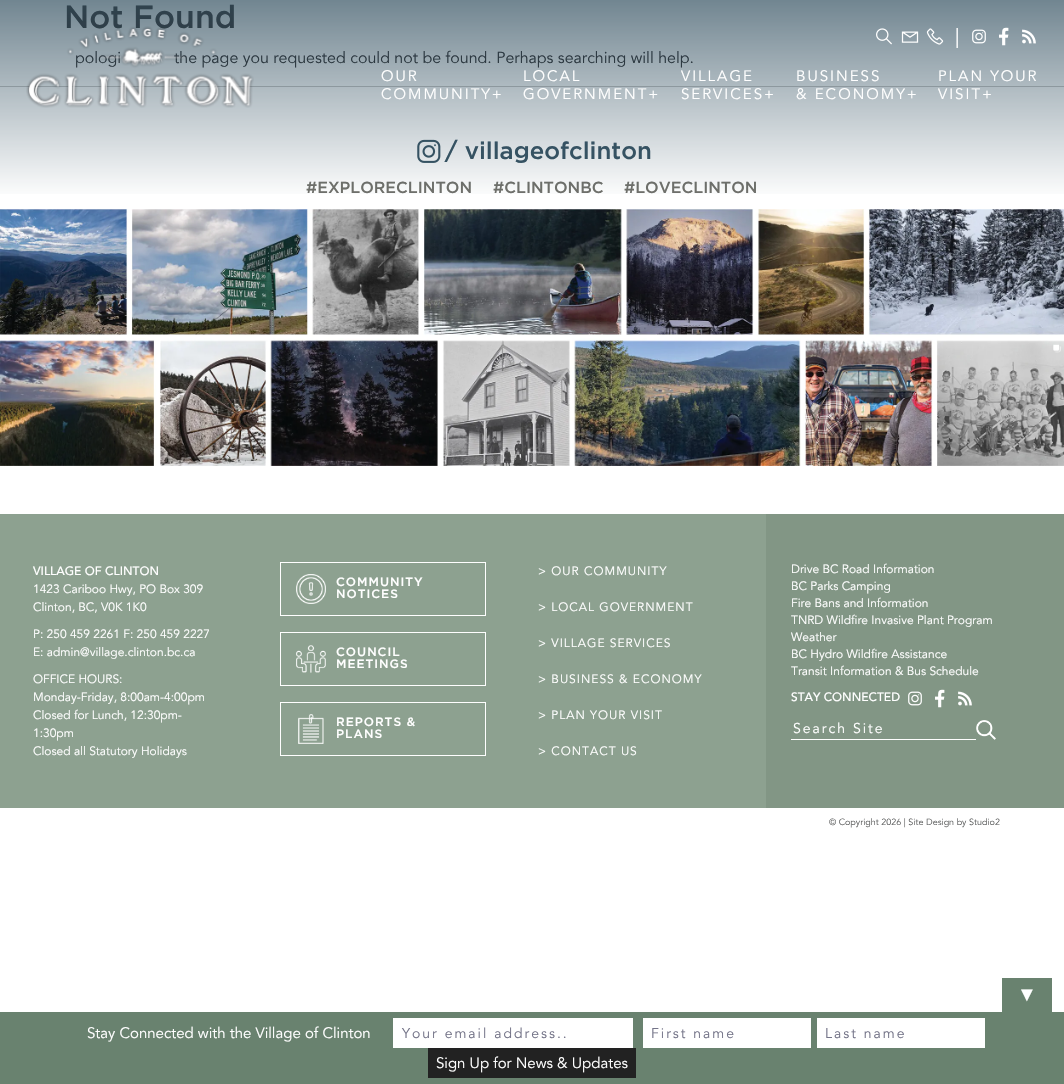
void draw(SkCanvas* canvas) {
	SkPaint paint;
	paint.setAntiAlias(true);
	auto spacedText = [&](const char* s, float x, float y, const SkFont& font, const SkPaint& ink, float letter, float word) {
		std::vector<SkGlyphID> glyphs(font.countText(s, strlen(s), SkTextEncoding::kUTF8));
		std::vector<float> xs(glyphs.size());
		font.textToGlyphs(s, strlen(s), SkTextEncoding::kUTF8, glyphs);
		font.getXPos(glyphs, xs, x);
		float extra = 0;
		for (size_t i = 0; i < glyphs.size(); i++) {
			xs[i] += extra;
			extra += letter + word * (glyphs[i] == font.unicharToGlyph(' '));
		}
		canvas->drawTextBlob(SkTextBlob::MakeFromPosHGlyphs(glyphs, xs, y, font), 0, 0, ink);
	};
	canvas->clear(0xffffffff);
	SkFont f1(fontMgr->matchFamilyStyle("Gotham", SkFontStyle(500, SkFontStyle::kNormal_Width, SkFontStyle::kUpright_Slant)), 32);
	f1.setSubpixel(true);
	paint.setColor(0xff231f20);
	canvas->drawString("Not Found", 64, 28, f1, paint);
	SkFont f2(fontMgr->matchFamilyStyle("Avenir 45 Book", SkFontStyle::Normal()), 16);
	f2.setSubpixel(true);
	canvas->drawString("pologi", 75, 63, f2, paint);
	canvas->drawString("the page you requested could not be found. Perhaps searching will help.", 174, 63, f2, paint);
	paint.setColor(0xffc8c7c7);
	canvas->drawRect(SkRect::MakeXYWH(0, 86, 1064, 1), paint);
	canvas->drawImageRect(SkImages::DeferredFromEncodedData(SkData::MakeFromFileName("img8.png")), SkRect::MakeXYWH(417, 139, 24, 24), SkSamplingOptions());
	SkFont f3(fontMgr->matchFamilyStyle("Gotham", SkFontStyle(500, SkFontStyle::kNormal_Width, SkFontStyle::kUpright_Slant)), 24);
	f3.setSubpixel(true);
	paint.setColor(0xff355262);
	canvas->drawString("/ villageofclinton", 445, 159, f3, paint);
	SkFont f4(fontMgr->matchFamilyStyle("Gotham", SkFontStyle(500, SkFontStyle::kNormal_Width, SkFontStyle::kUpright_Slant)), 16);
	f4.setSubpixel(true);
	paint.setColor(0xff70706b);
	canvas->drawString("#EXPLORECLINTON", 306, 193, f4, paint);
	canvas->drawString("#CLINTONBC", 493, 193, f4, paint);
	canvas->drawString("#LOVECLINTON", 624, 193, f4, paint);
	{
		const SkColor colors[] = {0xb3355262, 0x00355262};
		const float stops[] = {0, 1};
		const SkPoint ends[] = {{532, 0}, {532, 200}};
		paint.setShader(SkGradientShader::MakeLinear(ends, colors, stops, 2, SkTileMode::kClamp));
		paint.setAlpha(255);
	}
	canvas->drawRect(SkRect::MakeXYWH(0, 0, 1064, 194), paint);
	canvas->drawImageRect(SkImages::DeferredFromEncodedData(SkData::MakeFromFileName("img1.png")), SkRect::MakeXYWH(26, 26, 228, 82), SkSamplingOptions());
	canvas->drawImageRect(SkImages::DeferredFromEncodedData(SkData::MakeFromFileName("img2.png")), SkRect::MakeXYWH(876, 28, 16, 17), SkSamplingOptions());
	canvas->drawImageRect(SkImages::DeferredFromEncodedData(SkData::MakeFromFileName("img3.png")), SkRect::MakeXYWH(901, 31, 18, 12), SkSamplingOptions());
	canvas->drawImageRect(SkImages::DeferredFromEncodedData(SkData::MakeFromFileName("img4.png")), SkRect::MakeXYWH(926, 28, 18, 17), SkSamplingOptions());
	SkFont f5(fontMgr->matchFamilyStyle("Avenir 45 Book", SkFontStyle::Normal()), 20);
	f5.setSubpixel(true);
	paint.setShader(nullptr);
	paint.setColor(0xffffffff);
	canvas->drawString("|", 955, 43, f5, paint);
	canvas->drawImageRect(SkImages::DeferredFromEncodedData(SkData::MakeFromFileName("img5.png")), SkRect::MakeXYWH(972, 29, 14, 15), SkSamplingOptions());
	canvas->drawImageRect(SkImages::DeferredFromEncodedData(SkData::MakeFromFileName("img6.png")), SkRect::MakeXYWH(999, 27, 10, 19), SkSamplingOptions());
	canvas->drawImageRect(SkImages::DeferredFromEncodedData(SkData::MakeFromFileName("img7.png")), SkRect::MakeXYWH(1022, 29, 14, 15), SkSamplingOptions());
	SkFont f6(fontMgr->matchFamilyStyle("Avenir 45 Book", SkFontStyle::Normal()), 15);
	f6.setSubpixel(true);
	spacedText("OUR", 381, 81, f6, paint, 2, 0);
	spacedText("COMMUNITY+", 381, 99, f6, paint, 2, 0);
	spacedText("LOCAL", 523, 81, f6, paint, 2, 0);
	spacedText("GOVERNMENT+", 523, 99, f6, paint, 2, 0);
	spacedText("VILLAGE", 681, 81, f6, paint, 2, 0);
	spacedText("SERVICES+", 681, 99, f6, paint, 2, 0);
	spacedText("BUSINESS", 796, 81, f6, paint, 2, 0);
	spacedText("& ECONOMY+", 796, 99, f6, paint, 2, 0);
	spacedText("PLAN YOUR", 938, 81, f6, paint, 2, 0);
	spacedText("VISIT+", 938, 99, f6, paint, 2, 0);
	canvas->drawImageRect(SkImages::DeferredFromEncodedData(SkData::MakeFromFileName("img9.png")), SkRect::MakeXYWH(0, 209, 1064, 257), SkSamplingOptions());
	paint.setColor(0xff8da190);
	canvas->drawRect(SkRect::MakeXYWH(0, 514, 766, 294), paint);
	SkFont f7(fontMgr->matchFamilyStyle("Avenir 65", SkFontStyle(500, SkFontStyle::kNormal_Width, SkFontStyle::kUpright_Slant)), 12);
	f7.setSubpixel(true);
	paint.setColor(0xffffffff);
	canvas->drawString("VILLAGE OF CLINTON", 33, 575, f7, paint);
	SkFont f8(fontMgr->matchFamilyStyle("Avenir 45 Book", SkFontStyle::Normal()), 12);
	f8.setSubpixel(true);
	canvas->drawString("1423 Cariboo Hwy, PO Box 309", 33, 593, f8, paint);
	canvas->drawString("Clinton, BC, V0K 1K0", 33, 611, f8, paint);
	canvas->drawString("P: 250 459 2261 F: 250 459 2227", 33, 638, f8, paint);
	canvas->drawString("E: admin@village.clinton.bc.ca", 33, 656, f8, paint);
	canvas->drawString("OFFICE HOURS:", 33, 683, f8, paint);
	canvas->drawString("Monday-Friday, 8:00am-4:00pm", 33, 701, f8, paint);
	canvas->drawString("Closed for Lunch, 12:30pm-", 33, 719, f8, paint);
	canvas->drawString("1:30pm", 33, 737, f8, paint);
	canvas->drawString("Closed all Statutory Holidays", 33, 755, f8, paint);
	paint.setStroke(true);
	paint.setStrokeWidth(1);
	canvas->drawRect(SkRect::MakeXYWH(280.5, 562.5, 205, 53), paint);
	canvas->drawImageRect(SkImages::DeferredFromEncodedData(SkData::MakeFromFileName("img10.png")), SkRect::MakeXYWH(296, 574, 30, 30), SkSamplingOptions());
	SkFont f9(fontMgr->matchFamilyStyle("Gotham", SkFontStyle(500, SkFontStyle::kNormal_Width, SkFontStyle::kUpright_Slant)), 12);
	f9.setSubpixel(true);
	paint.setStroke(false);
	spacedText("COMMUNITY", 336, 586, f9, paint, 1, 0);
	spacedText("NOTICES", 336, 598, f9, paint, 1, 0);
	paint.setStroke(true);
	canvas->drawRect(SkRect::MakeXYWH(280.5, 632.5, 205, 53), paint);
	canvas->drawImageRect(SkImages::DeferredFromEncodedData(SkData::MakeFromFileName("img11.png")), SkRect::MakeXYWH(296, 645, 30, 28), SkSamplingOptions());
	paint.setStroke(false);
	spacedText("COUNCIL", 336, 656, f9, paint, 1, 0);
	spacedText("MEETINGS", 336, 668, f9, paint, 1, 0);
	paint.setStroke(true);
	canvas->drawRect(SkRect::MakeXYWH(280.5, 702.5, 205, 53), paint);
	canvas->drawImageRect(SkImages::DeferredFromEncodedData(SkData::MakeFromFileName("img12.png")), SkRect::MakeXYWH(298, 714, 26, 30), SkSamplingOptions());
	paint.setStroke(false);
	spacedText("REPORTS &", 336, 726, f9, paint, 1, 0);
	spacedText("PLANS", 336, 738, f9, paint, 1, 0);
	spacedText("> OUR COMMUNITY", 538, 575, f8, paint, 1, 0);
	spacedText("> LOCAL GOVERNMENT", 538, 611, f8, paint, 1, 0);
	spacedText("> VILLAGE SERVICES", 538, 647, f8, paint, 1, 0);
	spacedText("> BUSINESS & ECONOMY", 538, 683, f8, paint, 1, 0);
	spacedText("> PLAN YOUR VISIT", 538, 719, f8, paint, 1, 0);
	spacedText("> CONTACT US", 538, 755, f8, paint, 1, 0);
	paint.setColor(0xff829685);
	canvas->drawRect(SkRect::MakeXYWH(766, 514, 298, 294), paint);
	paint.setColor(0xffffffff);
	canvas->drawString("Drive BC Road Information", 791, 573, f8, paint);
	canvas->drawString("BC Parks Camping", 791, 590, f8, paint);
	canvas->drawString("Fire Bans and Information", 791, 607, f8, paint);
	canvas->drawString("TNRD Wildfire Invasive Plant Program", 791, 624, f8, paint);
	canvas->drawString("Weather", 791, 641, f8, paint);
	canvas->drawString("BC Hydro Wildfire Assistance", 791, 658, f8, paint);
	canvas->drawString("Transit Information & Bus Schedule", 791, 675, f8, paint);
	canvas->drawString("STAY CONNECTED", 791, 701, f7, paint);
	canvas->drawImageRect(SkImages::DeferredFromEncodedData(SkData::MakeFromFileName("img13.png")), SkRect::MakeXYWH(908, 691, 14, 15), SkSamplingOptions());
	canvas->drawImageRect(SkImages::DeferredFromEncodedData(SkData::MakeFromFileName("img14.png")), SkRect::MakeXYWH(935, 689, 10, 19), SkSamplingOptions());
	canvas->drawImageRect(SkImages::DeferredFromEncodedData(SkData::MakeFromFileName("img15.png")), SkRect::MakeXYWH(958, 691, 14, 15), SkSamplingOptions());
	canvas->drawRect(SkRect::MakeXYWH(791, 739, 185, 1), paint);
	SkFont f10(fontMgr->matchFamilyStyle("Avenir 45 Book", SkFontStyle::Normal()), 14);
	f10.setSubpixel(true);
	spacedText("Search Site", 793, 733, f10, paint, 2, 0);
	canvas->drawImageRect(SkImages::DeferredFromEncodedData(SkData::MakeFromFileName("img16.png")), SkRect::MakeXYWH(976, 720, 20, 20), SkSamplingOptions());
	SkFont f11(fontMgr->matchFamilyStyle("Avenir 45 Book", SkFontStyle::Normal()), 9);
	f11.setSubpixel(true);
	paint.setColor(0xff606161);
	canvas->drawString("© Copyright 2026 | Site Design by Studio2", 829, 825, f11, paint);
	paint.setColor(0xff69826f);
	canvas->drawRect(SkRect::MakeXYWH(1002, 978, 50, 34), paint);
	SkFont f12(fontMgr->matchFamilyStyle("Liberation Sans", SkFontStyle::Normal()), 20);
	f12.setSubpixel(true);
	paint.setColor(0xffffffff);
	canvas->drawString("▼", 1017, 1001, f12, paint);
	paint.setColor(0xff69826f);
	canvas->drawRect(SkRect::MakeXYWH(0, 1012, 1064, 72), paint);
	paint.setColor(0xffffffff);
	canvas->drawString("Stay Connected with the Village of Clinton", 87, 1038, f6, paint);
	canvas->drawRect(SkRect::MakeXYWH(393, 1018, 240, 30), paint);
	paint.setColor(0xff747488);
	spacedText("Your email address..", 402, 1038, f10, paint, 2, 0);
	paint.setColor(0xffffffff);
	canvas->drawRect(SkRect::MakeXYWH(643, 1018, 168, 30), paint);
	paint.setColor(0xff747488);
	spacedText("First name", 651, 1038, f10, paint, 2, 0);
	paint.setColor(0xffffffff);
	canvas->drawRect(SkRect::MakeXYWH(817, 1018, 168, 30), paint);
	paint.setColor(0xff747488);
	spacedText("Last name", 825, 1038, f10, paint, 2, 0);
	paint.setColor(0xff222222);
	canvas->drawRect(SkRect::MakeXYWH(428, 1048, 208, 30), paint);
	paint.setColor(0xffffffff);
	canvas->drawString("Sign Up for News & Updates", 436, 1068, f6, paint);
}
